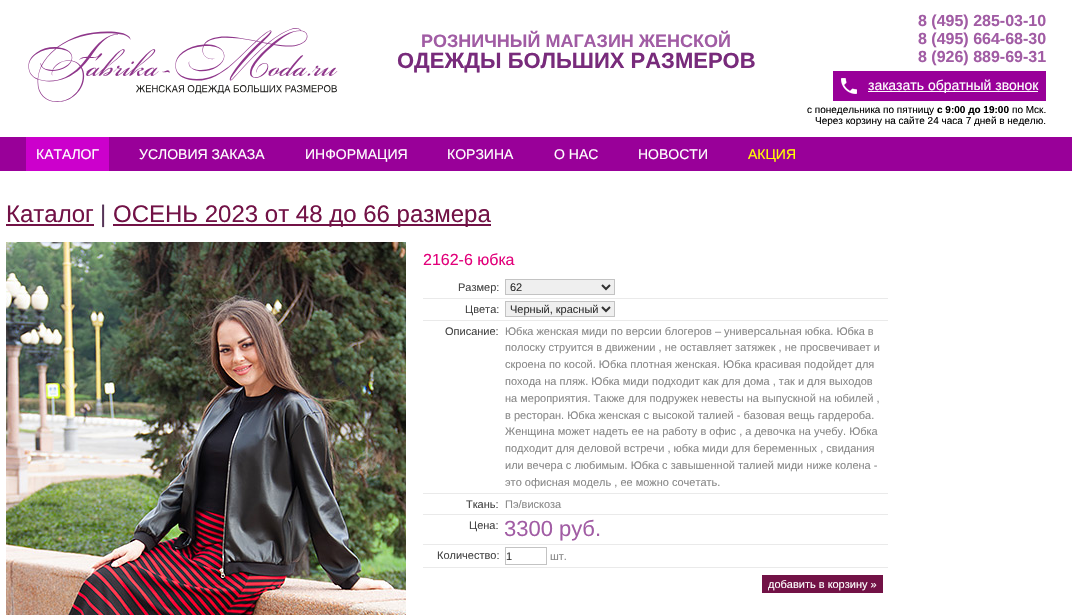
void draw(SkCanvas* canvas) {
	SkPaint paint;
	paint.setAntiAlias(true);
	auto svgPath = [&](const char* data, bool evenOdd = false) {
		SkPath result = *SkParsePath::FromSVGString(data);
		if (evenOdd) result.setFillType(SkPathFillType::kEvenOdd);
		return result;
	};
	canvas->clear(0xffffffff);
	paint.setColor(0xff990099);
	canvas->drawRect(SkRect::MakeXYWH(0, 137, 1072, 34), paint);
	canvas->drawImageRect(SkImages::DeferredFromEncodedData(SkData::MakeFromFileName("img1.png")), SkRect::MakeXYWH(28, 28, 310, 74), SkSamplingOptions());
	SkFont f1(fontMgr->matchFamilyStyle("Liberation Sans", SkFontStyle::Bold()), 18);
	f1.setSubpixel(true);
	paint.setColor(0xffa15ca4);
	canvas->drawString("РОЗНИЧНЫЙ МАГАЗИН ЖЕНСКОЙ", 421, 47, f1, paint);
	SkFont f2(fontMgr->matchFamilyStyle("Liberation Sans", SkFontStyle::Bold()), 22);
	f2.setSubpixel(true);
	paint.setColor(0xff782b7b);
	canvas->drawString("ОДЕЖДЫ БОЛЬШИХ РАЗМЕРОВ", 397, 68, f2, paint);
	SkFont f3(fontMgr->matchFamilyStyle("Liberation Sans", SkFontStyle::Bold()), 16);
	f3.setSubpixel(true);
	paint.setColor(0xffa15ca4);
	canvas->drawString("8 (495) 285-03-10", 918, 26, f3, paint);
	canvas->drawString("8 (495) 664-68-30", 918, 44, f3, paint);
	canvas->drawString("8 (926) 889-69-31", 918, 62, f3, paint);
	paint.setColor(0xff990099);
	canvas->drawRect(SkRect::MakeXYWH(833, 71, 213, 30), paint);
	canvas->drawImageRect(SkImages::DeferredFromEncodedData(SkData::MakeFromFileName("img2.png")), SkRect::MakeXYWH(841, 78, 16, 16), SkSamplingOptions());
	paint.setColor(0xffffffff);
	canvas->drawRect(SkRect::MakeXYWH(868, 91, 170, 1), paint);
	SkFont f4(fontMgr->matchFamilyStyle("Liberation Sans", SkFontStyle::Normal()), 14);
	f4.setSubpixel(true);
	canvas->drawString("заказать обратный звонок", 868, 90, f4, paint);
	SkFont f5(fontMgr->matchFamilyStyle("Liberation Sans", SkFontStyle::Normal()), 10);
	f5.setSubpixel(true);
	paint.setColor(0xff000000);
	canvas->drawString("с понедельника по пятницу", 807, 113, f5, paint);
	SkFont f6(fontMgr->matchFamilyStyle("Liberation Sans", SkFontStyle::Bold()), 10);
	f6.setSubpixel(true);
	canvas->drawString("с 9:00 до 19:00", 937, 113, f6, paint);
	canvas->drawString("по Мск.", 1012, 113, f5, paint);
	canvas->drawString("Через корзину на сайте 24 часа 7 дней в неделю.", 815, 124, f5, paint);
	paint.setColor(0xffcc00cc);
	canvas->drawRect(SkRect::MakeXYWH(26, 137, 83, 34), paint);
	paint.setColor(0xffffffff);
	canvas->drawString("КАТАЛОГ", 36, 159, f4, paint);
	canvas->drawString("УСЛОВИЯ ЗАКАЗА", 139, 159, f4, paint);
	canvas->drawString("ИНФОРМАЦИЯ", 305, 159, f4, paint);
	canvas->drawString("КОРЗИНА", 447, 159, f4, paint);
	canvas->drawString("О НАС", 554, 159, f4, paint);
	canvas->drawString("НОВОСТИ", 638, 159, f4, paint);
	paint.setColor(0xffffff00);
	canvas->drawString("АКЦИЯ", 748, 159, f4, paint);
	SkFont f7(fontMgr->matchFamilyStyle("Liberation Sans", SkFontStyle::Normal()), 24);
	f7.setSubpixel(true);
	paint.setColor(0xff721246);
	canvas->drawString("Каталог", 6, 222, f7, paint);
	canvas->drawRect(SkRect::MakeXYWH(6, 224, 88, 2), paint);
	paint.setColor(0xff563457);
	canvas->drawString("|", 100, 222, f7, paint);
	paint.setColor(0xff721246);
	canvas->drawRect(SkRect::MakeXYWH(113, 224, 378, 2), paint);
	canvas->drawString("ОСЕНЬ 2023 от 48 до 66 размера", 113, 222, f7, paint);
	canvas->drawImageRect(SkImages::DeferredFromEncodedData(SkData::MakeFromFileName("img3.png")), SkRect::MakeXYWH(6, 242, 400, 373), SkSamplingOptions());
	SkFont f8(fontMgr->matchFamilyStyle("Liberation Sans", SkFontStyle::Normal()), 16);
	f8.setSubpixel(true);
	paint.setColor(0xffe2007a);
	canvas->drawString("2162-6 юбка", 423, 265, f8, paint);
	paint.setColor(0xffeaeaea);
	canvas->drawRect(SkRect::MakeXYWH(423, 298, 465, 1), paint);
	SkFont f9(fontMgr->matchFamilyStyle("Liberation Sans", SkFontStyle::Normal()), 11);
	f9.setSubpixel(true);
	paint.setColor(0xff444444);
	canvas->drawString("Размер:", 458, 291, f9, paint);
	paint.setColor(0xffefefef);
	canvas->drawRect(SkRect::MakeXYWH(505.5, 279.5, 109, 15), paint);
	paint.setStroke(true);
	paint.setStrokeWidth(1);
	paint.setColor(0xffc3c3c3);
	canvas->drawRect(SkRect::MakeXYWH(505.5, 279.5, 109, 15), paint);
	paint.setStrokeWidth(2);
	paint.setColor(0xff333333);
	canvas->drawPath(svgPath("M602 285L606 289L610 285"), paint);
	paint.setStroke(false);
	canvas->drawString("62", 510, 291, f9, paint);
	paint.setColor(0xffeaeaea);
	canvas->drawRect(SkRect::MakeXYWH(423, 320, 465, 1), paint);
	paint.setColor(0xff444444);
	canvas->drawString("Цвета:", 465, 313, f9, paint);
	paint.setColor(0xffefefef);
	canvas->drawRect(SkRect::MakeXYWH(505.5, 301.5, 109, 15), paint);
	paint.setStroke(true);
	paint.setStrokeWidth(1);
	paint.setColor(0xffc3c3c3);
	canvas->drawRect(SkRect::MakeXYWH(505.5, 301.5, 109, 15), paint);
	paint.setStrokeWidth(2);
	paint.setColor(0xff333333);
	canvas->drawPath(svgPath("M602 307L606 311L610 307"), paint);
	paint.setStroke(false);
	canvas->drawString("Черный, красный", 510, 313, f9, paint);
	paint.setColor(0xffeaeaea);
	canvas->drawRect(SkRect::MakeXYWH(423, 493, 465, 1), paint);
	paint.setColor(0xff444444);
	canvas->drawString("Описание:", 445, 335, f9, paint);
	paint.setColor(0xff888888);
	canvas->drawString("Юбка женская миди по версии блогеров – универсальная юбка. Юбка в", 505, 335, f9, paint);
	canvas->drawString("полоску струится в движении , не оставляет затяжек , не просвечивает и", 505, 351, f9, paint);
	canvas->drawString("скроена по косой. Юбка плотная женская. Юбка красивая подойдет для", 505, 368, f9, paint);
	canvas->drawString("похода на пляж. Юбка миди подходит как для дома , так и для выходов", 505, 385, f9, paint);
	canvas->drawString("на мероприятия. Также для подружек невесты на выпускной на юбилей ,", 505, 402, f9, paint);
	canvas->drawString("в ресторан. Юбка женская с высокой талией - базовая вещь гардероба.", 505, 419, f9, paint);
	canvas->drawString("Женщина может надеть ее на работу в офис , а девочка на учебу. Юбка", 505, 435, f9, paint);
	canvas->drawString("подходит для деловой встречи , юбка миди для беременных , свидания", 505, 452, f9, paint);
	canvas->drawString("или вечера с любимым. Юбка с завышенной талией миди ниже колена -", 505, 469, f9, paint);
	canvas->drawString("это офисная модель , ее можно сочетать.", 505, 486, f9, paint);
	paint.setColor(0xffeaeaea);
	canvas->drawRect(SkRect::MakeXYWH(423, 514, 465, 1), paint);
	paint.setColor(0xff444444);
	canvas->drawString("Ткань:", 466, 508, f9, paint);
	paint.setColor(0xff888888);
	canvas->drawString("Пэ/вискоза", 505, 508, f9, paint);
	paint.setColor(0xffeaeaea);
	canvas->drawRect(SkRect::MakeXYWH(423, 544, 465, 1), paint);
	paint.setColor(0xff444444);
	canvas->drawString("Цена:", 469, 529, f9, paint);
	SkFont f10(fontMgr->matchFamilyStyle("Liberation Sans", SkFontStyle::Normal()), 22);
	f10.setSubpixel(true);
	paint.setColor(0xffa15ca4);
	canvas->drawString("3300 руб.", 504, 536, f10, paint);
	paint.setColor(0xffeaeaea);
	canvas->drawRect(SkRect::MakeXYWH(423, 567, 465, 1), paint);
	paint.setColor(0xff444444);
	canvas->drawString("Количество:", 437, 559, f9, paint);
	paint.setStroke(true);
	paint.setStrokeWidth(1);
	paint.setColor(0xffc3c3c3);
	canvas->drawRect(SkRect::MakeXYWH(505.5, 547.5, 41, 17), paint);
	paint.setStroke(false);
	paint.setColor(0xff333333);
	canvas->drawString("1", 506, 560, f9, paint);
	paint.setColor(0xff888888);
	canvas->drawString("шт.", 550, 560, f9, paint);
	paint.setColor(0xff721246);
	canvas->drawRect(SkRect::MakeXYWH(762, 575, 121, 18), paint);
	paint.setColor(0xffffffff);
	canvas->drawString("добавить в корзину »", 768, 588, f9, paint);
}
